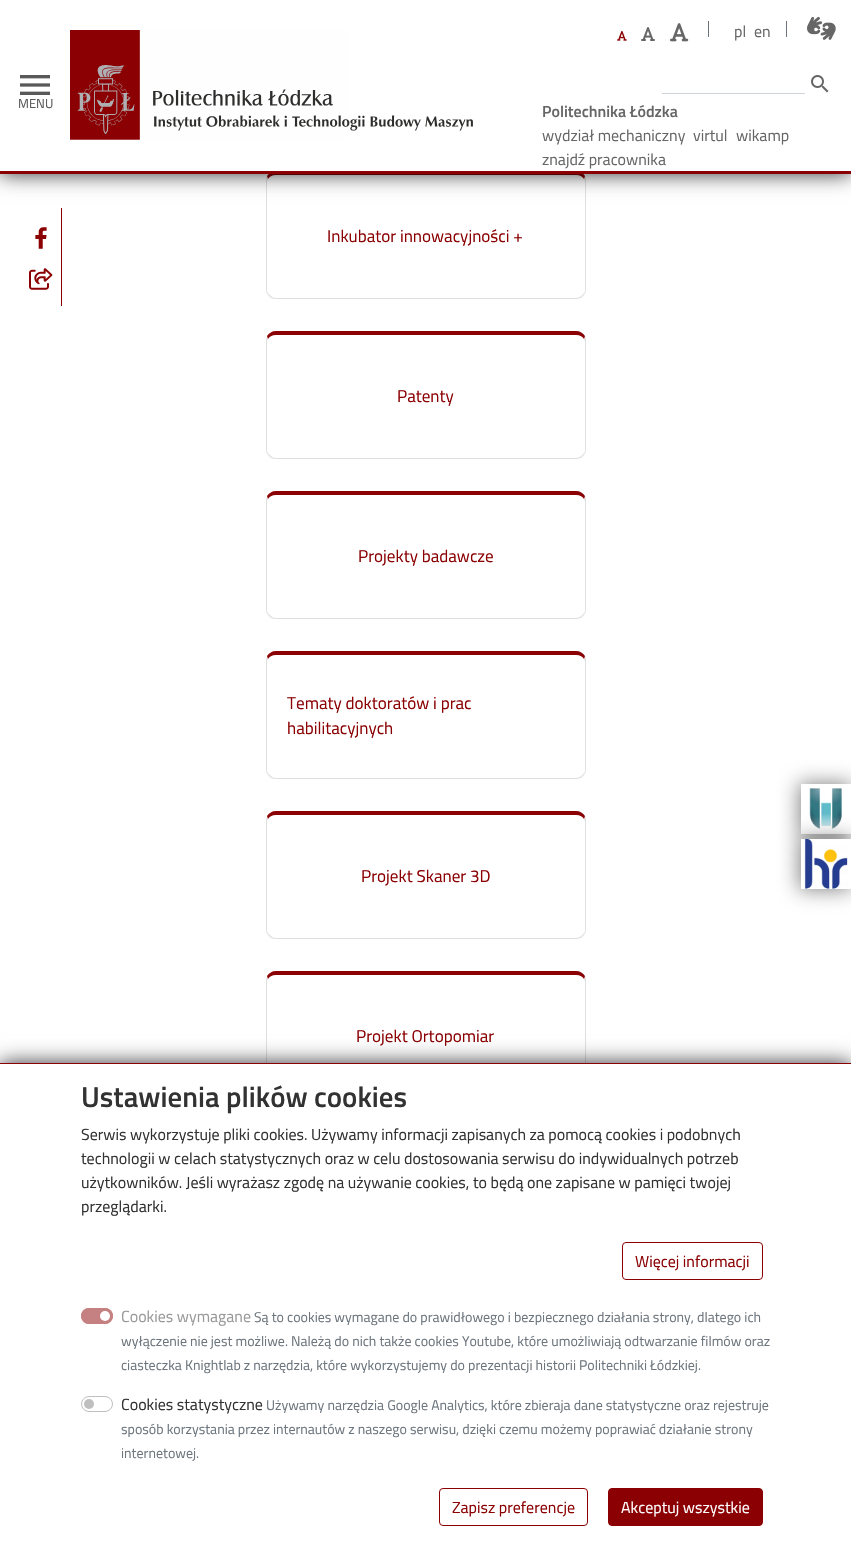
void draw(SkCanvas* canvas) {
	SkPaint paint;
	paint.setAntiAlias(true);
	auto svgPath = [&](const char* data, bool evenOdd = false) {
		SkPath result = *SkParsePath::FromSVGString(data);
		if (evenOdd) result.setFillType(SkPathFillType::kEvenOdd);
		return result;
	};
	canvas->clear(0xffffffff);
	paint.setColor(0xff8b0002);
	canvas->drawPath(svgPath("M276 171C272 171 269 173 267 176L268 179C269 177 272 175 276 175H576C580 175 583 177 584 179L585 176C583 173 580 171 576 171Z"), paint);
	paint.setColor(0x1f000000);
	canvas->drawPath(svgPath("M586 289V181C586 179 586 177 585 176L584 179L585 181V290C585 292 584 294 582 295L583 296C585 294 586 292 586 289Z"), paint);
	canvas->drawPath(svgPath("M276 299H576C579 299 582 298 583 296L582 295C581 297 578 298 576 298H276C274 298 271 297 270 295L269 296C270 298 273 299 276 299Z"), paint);
	canvas->drawPath(svgPath("M266 181V289C266 292 267 294 269 296L270 295C268 294 267 292 267 290V181L268 179L267 176Z"), paint);
	paint.setColor(0xcc000000);
	paint.setMaskFilter(SkMaskFilter::MakeBlur(kNormal_SkBlurStyle, 10));
	canvas->drawRect(SkRect::MakeXYWH(0, 0, 851, 174), paint);
	paint.setMaskFilter(nullptr);
	paint.setColor(0xffffffff);
	canvas->drawRect(SkRect::MakeXYWH(0, 0, 851, 171), paint);
	paint.setColor(0xff8b0002);
	canvas->drawRect(SkRect::MakeXYWH(0, 171, 851, 3), paint);
	canvas->drawImageRect(SkImages::DeferredFromEncodedData(SkData::MakeFromFileName("img1.png")), SkRect::MakeXYWH(20, 75, 30, 20), SkSamplingOptions());
	SkFont f1(fontMgr->matchFamilyStyle("Titillium Web", SkFontStyle::Normal()), 13);
	f1.setSubpixel(true);
	paint.setColor(0xff595959);
	canvas->drawString("MENU", 18, 108, f1, paint);
	canvas->drawImageRect(SkImages::DeferredFromEncodedData(SkData::MakeFromFileName("img2.png")), SkRect::MakeXYWH(70, 30, 403, 110), SkSamplingOptions());
	canvas->save();
	canvas->clipPath(svgPath("M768 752H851V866H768ZM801 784H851V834H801Z", true), true);
	paint.setColor(0x7a000000);
	paint.setMaskFilter(SkMaskFilter::MakeBlur(kNormal_SkBlurStyle, 10));
	canvas->drawRect(SkRect::MakeXYWH(799, 783, 52, 52), paint);
	paint.setMaskFilter(nullptr);
	canvas->restore();
	canvas->drawImageRect(SkImages::DeferredFromEncodedData(SkData::MakeFromFileName("img3.png")), SkRect::MakeXYWH(809, 788, 33, 41), SkSamplingOptions());
	paint.setMaskFilter(SkMaskFilter::MakeBlur(kNormal_SkBlurStyle, 10));
	canvas->drawRect(SkRect::MakeXYWH(799, 838, 52, 52), paint);
	paint.setMaskFilter(nullptr);
	paint.setColor(0xffffffff);
	canvas->drawRect(SkRect::MakeXYWH(801, 839, 50, 50), paint);
	canvas->drawImageRect(SkImages::DeferredFromEncodedData(SkData::MakeFromFileName("img4.png")), SkRect::MakeXYWH(804, 839, 44, 50), SkSamplingOptions());
	canvas->drawImageRect(SkImages::DeferredFromEncodedData(SkData::MakeFromFileName("img5.png")), SkRect::MakeXYWH(617, 30, 10, 11), SkSamplingOptions());
	canvas->drawImageRect(SkImages::DeferredFromEncodedData(SkData::MakeFromFileName("img6.png")), SkRect::MakeXYWH(641, 27, 14, 14), SkSamplingOptions());
	canvas->drawImageRect(SkImages::DeferredFromEncodedData(SkData::MakeFromFileName("img7.png")), SkRect::MakeXYWH(670, 23, 19, 19), SkSamplingOptions());
	paint.setColor(0xff6c757d);
	canvas->drawRect(SkRect::MakeXYWH(708, 21, 1, 16), paint);
	SkFont f2(fontMgr->matchFamilyStyle("Titillium Web", SkFontStyle::Normal()), 16);
	f2.setSubpixel(true);
	paint.setColor(0xff666666);
	canvas->drawString("pl", 734, 37, f2, paint);
	canvas->drawString("en", 754, 37, f2, paint);
	paint.setColor(0xff6c757d);
	canvas->drawRect(SkRect::MakeXYWH(786, 21, 1, 16), paint);
	canvas->drawImageRect(SkImages::DeferredFromEncodedData(SkData::MakeFromFileName("img8.png")), SkRect::MakeXYWH(807, 16, 29, 24), SkSamplingOptions());
	canvas->drawImageRect(SkImages::DeferredFromEncodedData(SkData::MakeFromFileName("img9.png")), SkRect::MakeXYWH(811, 75, 18, 18), SkSamplingOptions());
	paint.setColor(0xffced4da);
	canvas->drawRect(SkRect::MakeXYWH(662, 93, 143, 1), paint);
	SkFont f3(fontMgr->matchFamilyStyle("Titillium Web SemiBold", SkFontStyle(600, SkFontStyle::kNormal_Width, SkFontStyle::kUpright_Slant)), 16);
	f3.setSubpixel(true);
	paint.setColor(0xff666666);
	canvas->drawString("Politechnika Łódzka", 542, 117, f3, paint);
	canvas->drawString("wydział mechaniczny", 542, 141, f2, paint);
	canvas->drawString("virtul", 693, 141, f2, paint);
	canvas->drawString("wikamp", 736, 141, f2, paint);
	canvas->drawString("znajdź pracownika", 542, 165, f2, paint);
	paint.setColor(0xff8b0002);
	canvas->drawRect(SkRect::MakeXYWH(61, 208, 1, 98), paint);
	canvas->drawImageRect(SkImages::DeferredFromEncodedData(SkData::MakeFromFileName("img10.png")), SkRect::MakeXYWH(35, 227, 12, 22), SkSamplingOptions());
	canvas->drawImageRect(SkImages::DeferredFromEncodedData(SkData::MakeFromFileName("img11.png")), SkRect::MakeXYWH(29, 268, 24, 22), SkSamplingOptions());
	SkFont f4(fontMgr->matchFamilyStyle("Titillium Web", SkFontStyle::Normal()), 17.1);
	f4.setSubpixel(true);
	canvas->drawString("Inkubator innowacyjności +", 327, 242, f4, paint);
	canvas->drawPath(svgPath("M276 331C272 331 269 333 267 336L268 339C269 337 272 335 276 335H576C580 335 583 337 584 339L585 336C583 333 580 331 576 331Z"), paint);
	paint.setColor(0x1f000000);
	canvas->drawPath(svgPath("M586 449V341C586 339 586 337 585 336L584 339L585 341V450C585 452 584 454 582 455L583 456C585 454 586 452 586 449Z"), paint);
	canvas->drawPath(svgPath("M276 459H576C579 459 582 458 583 456L582 455C581 457 578 458 576 458H276C274 458 271 457 270 455L269 456C270 458 273 459 276 459Z"), paint);
	canvas->drawPath(svgPath("M266 341V449C266 452 267 454 269 456L270 455C268 454 267 452 267 450V341L268 339L267 336Z"), paint);
	paint.setColor(0xff8b0002);
	canvas->drawString("Patenty", 397, 402, f4, paint);
	canvas->drawPath(svgPath("M276 491C272 491 269 493 267 496L268 499C269 497 272 495 276 495H576C580 495 583 497 584 499L585 496C583 493 580 491 576 491Z"), paint);
	paint.setColor(0x1f000000);
	canvas->drawPath(svgPath("M586 609V501C586 499 586 497 585 496L584 499L585 501V610C585 612 584 614 582 615L583 616C585 614 586 612 586 609Z"), paint);
	canvas->drawPath(svgPath("M276 619H576C579 619 582 618 583 616L582 615C581 617 578 618 576 618H276C274 618 271 617 270 615L269 616C270 618 273 619 276 619Z"), paint);
	canvas->drawPath(svgPath("M266 501V609C266 612 267 614 269 616L270 615C268 614 267 612 267 610V501L268 499L267 496Z"), paint);
	paint.setColor(0xff8b0002);
	canvas->drawString("Projekty badawcze", 358, 562, f4, paint);
	canvas->drawPath(svgPath("M276 651C272 651 269 653 267 656L268 659C269 657 272 655 276 655H576C580 655 583 657 584 659L585 656C583 653 580 651 576 651Z"), paint);
	paint.setColor(0x1f000000);
	canvas->drawPath(svgPath("M586 769V661C586 659 586 657 585 656L584 659L585 661V770C585 772 584 774 582 775L583 776C585 774 586 772 586 769Z"), paint);
	canvas->drawPath(svgPath("M276 779H576C579 779 582 778 583 776L582 775C581 777 578 778 576 778H276C274 778 271 777 270 775L269 776C270 778 273 779 276 779Z"), paint);
	canvas->drawPath(svgPath("M266 661V769C266 772 267 774 269 776L270 775C268 774 267 772 267 770V661L268 659L267 656Z"), paint);
	paint.setColor(0xff8b0002);
	canvas->drawString("Tematy doktoratów i prac", 287, 709, f4, paint);
	canvas->drawString("habilitacyjnych", 287, 734, f4, paint);
	canvas->drawPath(svgPath("M276 811C272 811 269 813 267 816L268 819C269 817 272 815 276 815H576C580 815 583 817 584 819L585 816C583 813 580 811 576 811Z"), paint);
	paint.setColor(0x1f000000);
	canvas->drawPath(svgPath("M586 929V821C586 819 586 817 585 816L584 819L585 821V930C585 932 584 934 582 935L583 936C585 934 586 932 586 929Z"), paint);
	canvas->drawPath(svgPath("M276 939H576C579 939 582 938 583 936L582 935C581 937 578 938 576 938H276C274 938 271 937 270 935L269 936C270 938 273 939 276 939Z"), paint);
	canvas->drawPath(svgPath("M266 821V929C266 932 267 934 269 936L270 935C268 934 267 932 267 930V821L268 819L267 816Z"), paint);
	paint.setColor(0xff8b0002);
	canvas->drawString("Projekt Skaner 3D", 361, 882, f4, paint);
	canvas->drawPath(svgPath("M276 971C272 971 269 973 267 976L268 979C269 977 272 975 276 975H576C580 975 583 977 584 979L585 976C583 973 580 971 576 971Z"), paint);
	paint.setColor(0x1f000000);
	canvas->drawPath(svgPath("M586 1089V981C586 979 586 977 585 976L584 979L585 981V1090C585 1092 584 1094 582 1095L583 1096C585 1094 586 1092 586 1089Z"), paint);
	canvas->drawPath(svgPath("M266 981V1089C266 1092 267 1094 269 1096L270 1095C268 1094 267 1092 267 1090V981L268 979L267 976Z"), paint);
	paint.setColor(0xff8b0002);
	canvas->drawString("Projekt Ortopomiar", 356, 1042, f4, paint);
	paint.setColor(0xcc000000);
	paint.setMaskFilter(SkMaskFilter::MakeBlur(kNormal_SkBlurStyle, 10));
	canvas->drawRect(SkRect::MakeXYWH(0, 1063, 851, 494), paint);
	paint.setMaskFilter(nullptr);
	paint.setColor(0xffffffff);
	canvas->drawRect(SkRect::MakeXYWH(0, 1064, 851, 493), paint);
	paint.setColor(0xff8b0002);
	canvas->drawRect(SkRect::MakeXYWH(0, 1063, 851, 1), paint);
	SkFont f5(fontMgr->matchFamilyStyle("Titillium Web SemiBold", SkFontStyle(600, SkFontStyle::kNormal_Width, SkFontStyle::kUpright_Slant)), 28.9);
	f5.setSubpixel(true);
	paint.setColor(0xff323232);
	canvas->drawString("Ustawienia plików cookies", 81, 1107, f5, paint);
	canvas->drawString("Serwis wykorzystuje pliki cookies. Używamy informacji zapisanych za pomocą cookies i podobnych", 81, 1140, f2, paint);
	canvas->drawString("technologii w celach statystycznych oraz w celu dostosowania serwisu do indywidualnych potrzeb", 81, 1164, f2, paint);
	canvas->drawString("użytkowników. Jeśli wyrażasz zgodę na używanie cookies, to będą one zapisane w pamięci twojej", 81, 1188, f2, paint);
	canvas->drawString("przeglądarki.", 81, 1212, f2, paint);
	paint.setStroke(true);
	paint.setStrokeWidth(1);
	paint.setColor(0xff8b0002);
	canvas->drawRoundRect(SkRect::MakeXYWH(622.5, 1242.5, 140, 37), 3.5, 3.5, paint);
	paint.setStroke(false);
	canvas->drawString("Więcej informacji", 635, 1267, f2, paint);
	paint.setColor(0xffc58081);
	canvas->drawRoundRect(SkRect::MakeXYWH(81, 1308, 32, 16), 8, 8, paint);
	paint.setColor(0xffffffff);
	canvas->drawCircle(105, 1316, 5, paint);
	paint.setStroke(true);
	paint.setColor(0xffc58081);
	canvas->drawRoundRect(SkRect::MakeXYWH(81.5, 1308.5, 31, 15), 7.5, 7.5, paint);
	paint.setStroke(false);
	paint.setColor(0xff999999);
	canvas->drawString("Cookies wymagane", 121, 1322, f2, paint);
	SkFont f6(fontMgr->matchFamilyStyle("Titillium Web", SkFontStyle::Normal()), 14);
	f6.setSubpixel(true);
	paint.setColor(0xff6c757d);
	canvas->drawString("Są to cookies wymagane do prawidłowego i bezpiecznego działania strony, dlatego ich", 254, 1322, f6, paint);
	canvas->drawString("wyłączenie nie jest możliwe. Należą do nich także cookies Youtube, które umożliwiają odtwarzanie filmów oraz", 121, 1346, f6, paint);
	canvas->drawString("ciasteczka Knightlab z narzędzia, które wykorzystujemy do prezentacji historii Politechniki Łódzkiej.", 121, 1370, f6, paint);
	paint.setColor(0xffbfbfbf);
	canvas->drawCircle(89, 1404, 5, paint);
	paint.setStroke(true);
	canvas->drawRoundRect(SkRect::MakeXYWH(81.5, 1396.5, 31, 15), 7.5, 7.5, paint);
	paint.setStroke(false);
	paint.setColor(0xff323232);
	canvas->drawString("Cookies statystyczne", 121, 1410, f2, paint);
	paint.setColor(0xff6c757d);
	canvas->drawString("Używamy narzędzia Google Analytics, które zbieraja dane statystyczne oraz rejestruje", 266, 1410, f6, paint);
	canvas->drawString("sposób korzystania przez internautów z naszego serwisu, dzięki czemu możemy poprawiać działanie strony", 121, 1434, f6, paint);
	canvas->drawString("internetowej.", 121, 1458, f6, paint);
	paint.setStroke(true);
	paint.setColor(0xff8b0002);
	canvas->drawRoundRect(SkRect::MakeXYWH(439.5, 1488.5, 148, 37), 3.5, 3.5, paint);
	paint.setStroke(false);
	canvas->drawString("Zapisz preferencje", 452, 1513, f2, paint);
	canvas->drawRoundRect(SkRect::MakeXYWH(608.5, 1488.5, 154, 37), 3.5, 3.5, paint);
	paint.setStroke(true);
	canvas->drawRoundRect(SkRect::MakeXYWH(608.5, 1488.5, 154, 37), 3.5, 3.5, paint);
	paint.setStroke(false);
	paint.setColor(0xffffffff);
	canvas->drawString("Akceptuj wszystkie", 621, 1513, f2, paint);
}
